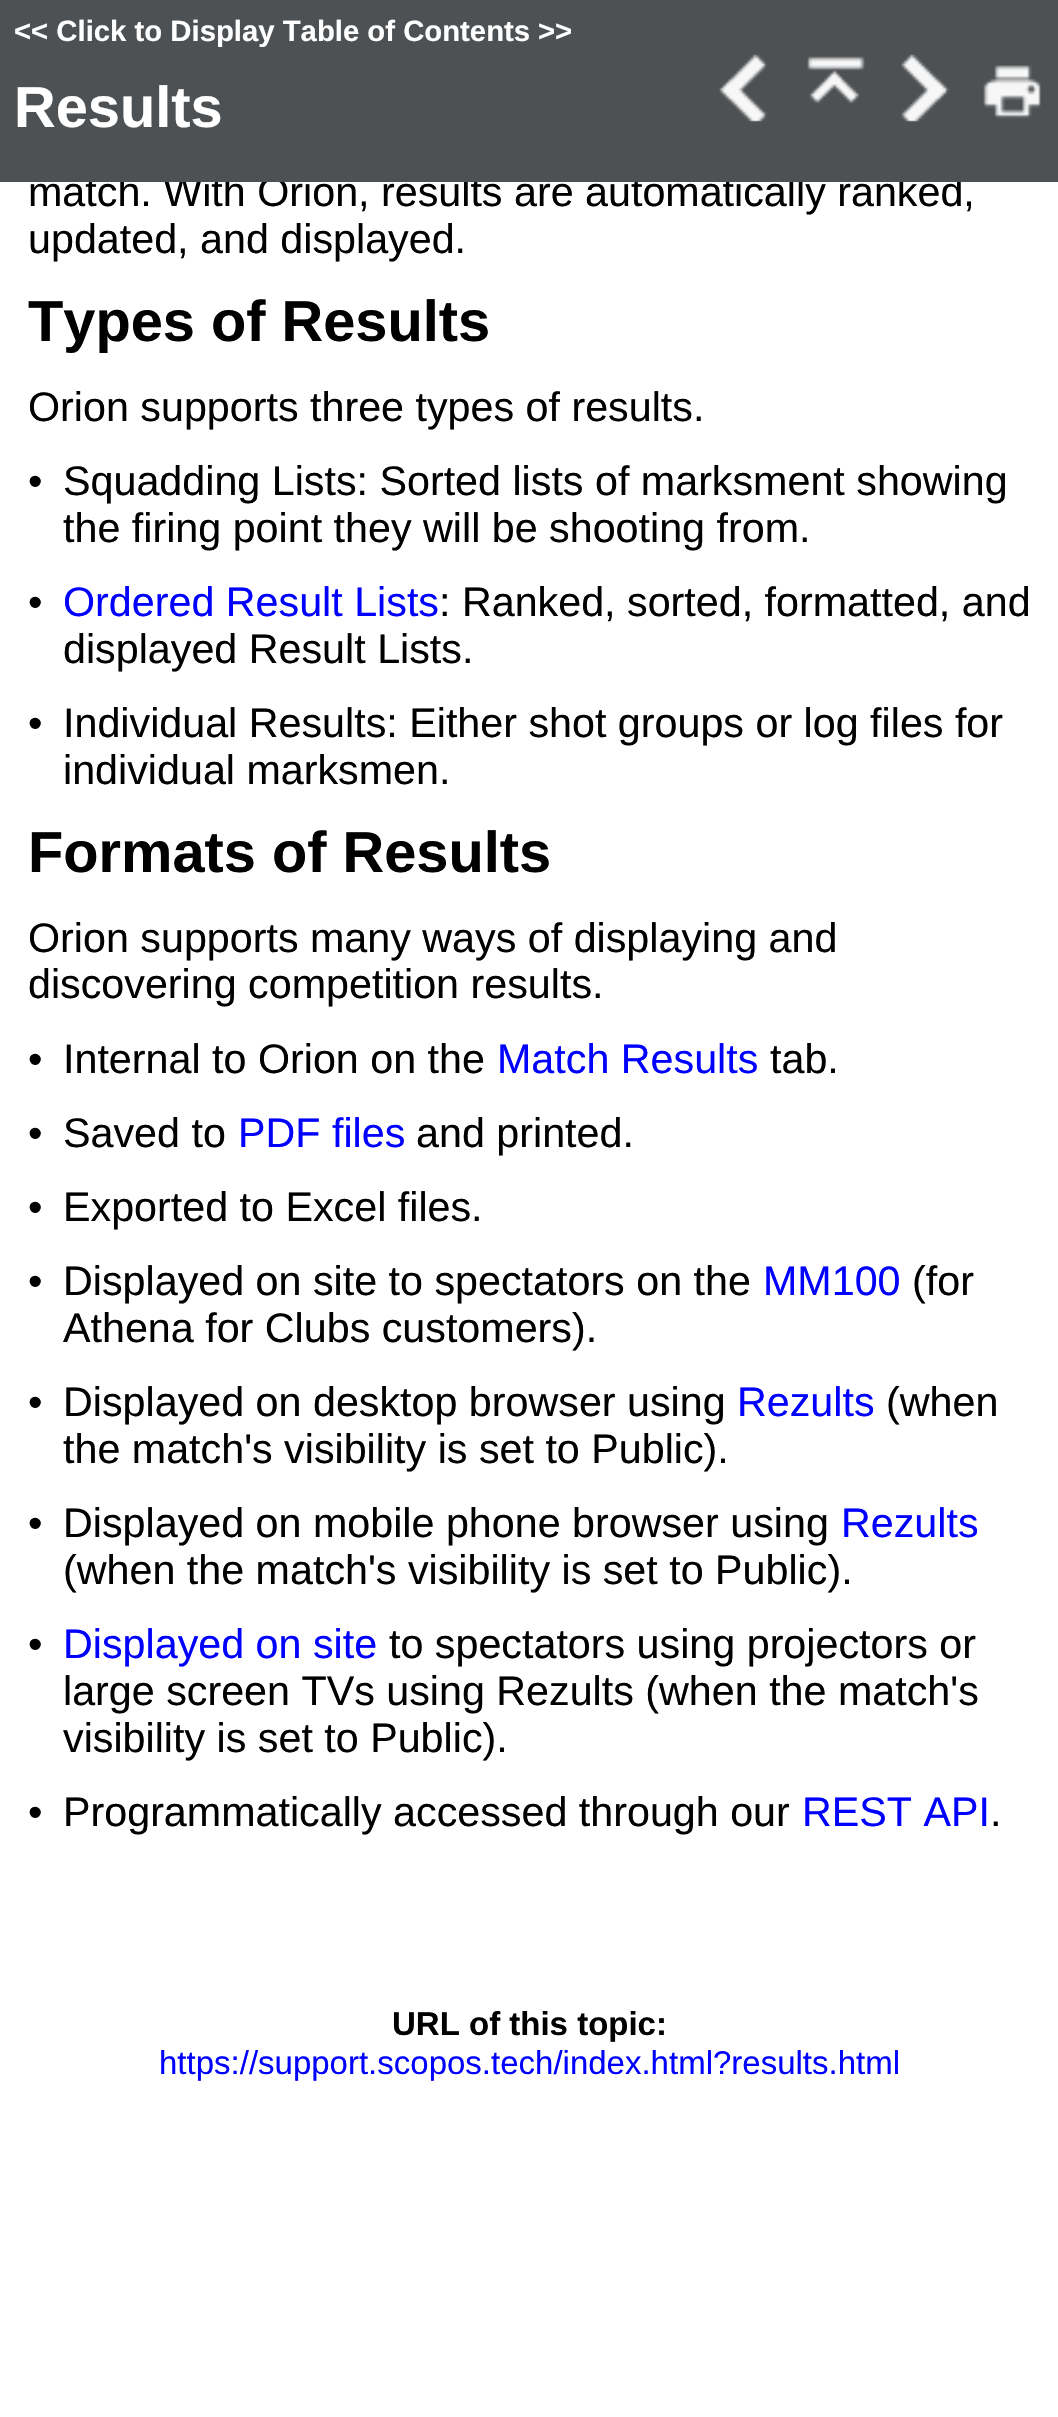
void draw(SkCanvas* canvas) {
	SkPaint paint;
	paint.setAntiAlias(true);
	canvas->clear(0xffffffff);
	SkFont f1(fontMgr->matchFamilyStyle("Liberation Sans", SkFontStyle::Normal()), 41.25);
	f1.setSubpixel(true);
	paint.setColor(0xff000000);
	canvas->drawString("match. With Orion, results are automatically ranked,", 28, 206, f1, paint);
	paint.setColor(0xff4e5154);
	canvas->drawRect(SkRect::MakeXYWH(0, 0, 1058, 182), paint);
	SkFont f2(fontMgr->matchFamilyStyle("Liberation Sans", SkFontStyle::Bold()), 29.3);
	f2.setSubpixel(true);
	paint.setColor(0xffffffff);
	canvas->drawString("<< Click to Display Table of Contents", 14, 41, f2, paint);
	canvas->drawString(">>", 538, 41, f2, paint);
	SkFont f3(fontMgr->matchFamilyStyle("Liberation Sans", SkFontStyle::Bold()), 57.75);
	f3.setSubpixel(true);
	canvas->drawString("Results", 14, 127, f3, paint);
	canvas->drawImageRect(SkImages::DeferredFromEncodedData(SkData::MakeFromFileName("img1.png")), SkRect::MakeXYWH(719, 54, 49, 68), SkSamplingOptions());
	canvas->drawImageRect(SkImages::DeferredFromEncodedData(SkData::MakeFromFileName("img2.png")), SkRect::MakeXYWH(807, 56, 58, 48), SkSamplingOptions());
	canvas->drawImageRect(SkImages::DeferredFromEncodedData(SkData::MakeFromFileName("img3.png")), SkRect::MakeXYWH(901, 54, 49, 68), SkSamplingOptions());
	canvas->drawImageRect(SkImages::DeferredFromEncodedData(SkData::MakeFromFileName("img4.png")), SkRect::MakeXYWH(983, 65, 58, 54), SkSamplingOptions());
	paint.setColor(0xff000000);
	canvas->drawString("updated, and displayed.", 28, 253, f1, paint);
	canvas->drawString("Types of Results", 28, 341, f3, paint);
	canvas->drawString("Orion supports three types of results.", 28, 421, f1, paint);
	canvas->drawString("•", 28, 495, f1, paint);
	canvas->drawString("Squadding Lists: Sorted lists of marksment showing", 63, 495, f1, paint);
	canvas->drawString("the firing point they will be shooting from.", 63, 542, f1, paint);
	canvas->drawString("•", 28, 616, f1, paint);
	paint.setColor(0xff0000ff);
	canvas->drawString("Ordered Result Lists", 63, 616, f1, paint);
	paint.setColor(0xff000000);
	canvas->drawString(": Ranked, sorted, formatted, and", 439, 616, f1, paint);
	canvas->drawString("displayed Result Lists.", 63, 663, f1, paint);
	canvas->drawString("•", 28, 737, f1, paint);
	canvas->drawString("Individual Results: Either shot groups or log files for", 63, 737, f1, paint);
	canvas->drawString("individual marksmen.", 63, 784, f1, paint);
	canvas->drawString("Formats of Results", 28, 872, f3, paint);
	canvas->drawString("Orion supports many ways of displaying and", 28, 952, f1, paint);
	canvas->drawString("discovering competition results.", 28, 998, f1, paint);
	canvas->drawString("•", 28, 1073, f1, paint);
	canvas->drawString("Internal to Orion on the", 63, 1073, f1, paint);
	paint.setColor(0xff0000ff);
	canvas->drawString("Match Results", 497, 1073, f1, paint);
	paint.setColor(0xff000000);
	canvas->drawString("tab.", 770, 1073, f1, paint);
	canvas->drawString("•", 28, 1147, f1, paint);
	canvas->drawString("Saved to", 63, 1147, f1, paint);
	paint.setColor(0xff0000ff);
	canvas->drawString("PDF files", 238, 1147, f1, paint);
	paint.setColor(0xff000000);
	canvas->drawString("and printed.", 416, 1147, f1, paint);
	canvas->drawString("•", 28, 1221, f1, paint);
	canvas->drawString("Exported to Excel files.", 63, 1221, f1, paint);
	canvas->drawString("•", 28, 1295, f1, paint);
	canvas->drawString("Displayed on site to spectators on the", 63, 1295, f1, paint);
	paint.setColor(0xff0000ff);
	canvas->drawString("MM100", 763, 1295, f1, paint);
	paint.setColor(0xff000000);
	canvas->drawString("(for", 912, 1295, f1, paint);
	canvas->drawString("Athena for Clubs customers).", 63, 1342, f1, paint);
	canvas->drawString("•", 28, 1416, f1, paint);
	canvas->drawString("Displayed on desktop browser using", 63, 1416, f1, paint);
	paint.setColor(0xff0000ff);
	canvas->drawString("Rezults", 737, 1416, f1, paint);
	paint.setColor(0xff000000);
	canvas->drawString("(when", 886, 1416, f1, paint);
	canvas->drawString("the match's visibility is set to Public).", 63, 1463, f1, paint);
	canvas->drawString("•", 28, 1537, f1, paint);
	canvas->drawString("Displayed on mobile phone browser using", 63, 1537, f1, paint);
	paint.setColor(0xff0000ff);
	canvas->drawString("Rezults", 841, 1537, f1, paint);
	paint.setColor(0xff000000);
	canvas->drawString("(when the match's visibility is set to Public).", 63, 1584, f1, paint);
	canvas->drawString("•", 28, 1658, f1, paint);
	paint.setColor(0xff0000ff);
	canvas->drawString("Displayed on site", 63, 1658, f1, paint);
	paint.setColor(0xff000000);
	canvas->drawString("to spectators using projectors or", 389, 1658, f1, paint);
	canvas->drawString("large screen TVs using Rezults (when the match's", 63, 1705, f1, paint);
	canvas->drawString("visibility is set to Public).", 63, 1752, f1, paint);
	canvas->drawString("•", 28, 1826, f1, paint);
	canvas->drawString("Programmatically accessed through our", 63, 1826, f1, paint);
	paint.setColor(0xff0000ff);
	canvas->drawString("REST API", 802, 1826, f1, paint);
	paint.setColor(0xff000000);
	canvas->drawString(".", 990, 1826, f1, paint);
	SkFont f4(fontMgr->matchFamilyStyle("Liberation Sans", SkFontStyle::Bold()), 33);
	f4.setSubpixel(true);
	canvas->drawString("URL of this topic:", 392, 2035, f4, paint);
	SkFont f5(fontMgr->matchFamilyStyle("Liberation Sans", SkFontStyle::Normal()), 33);
	f5.setSubpixel(true);
	paint.setColor(0xff0000ff);
	canvas->drawString("https://support.scopos.tech/index.html?results.html", 159, 2074, f5, paint);
}
